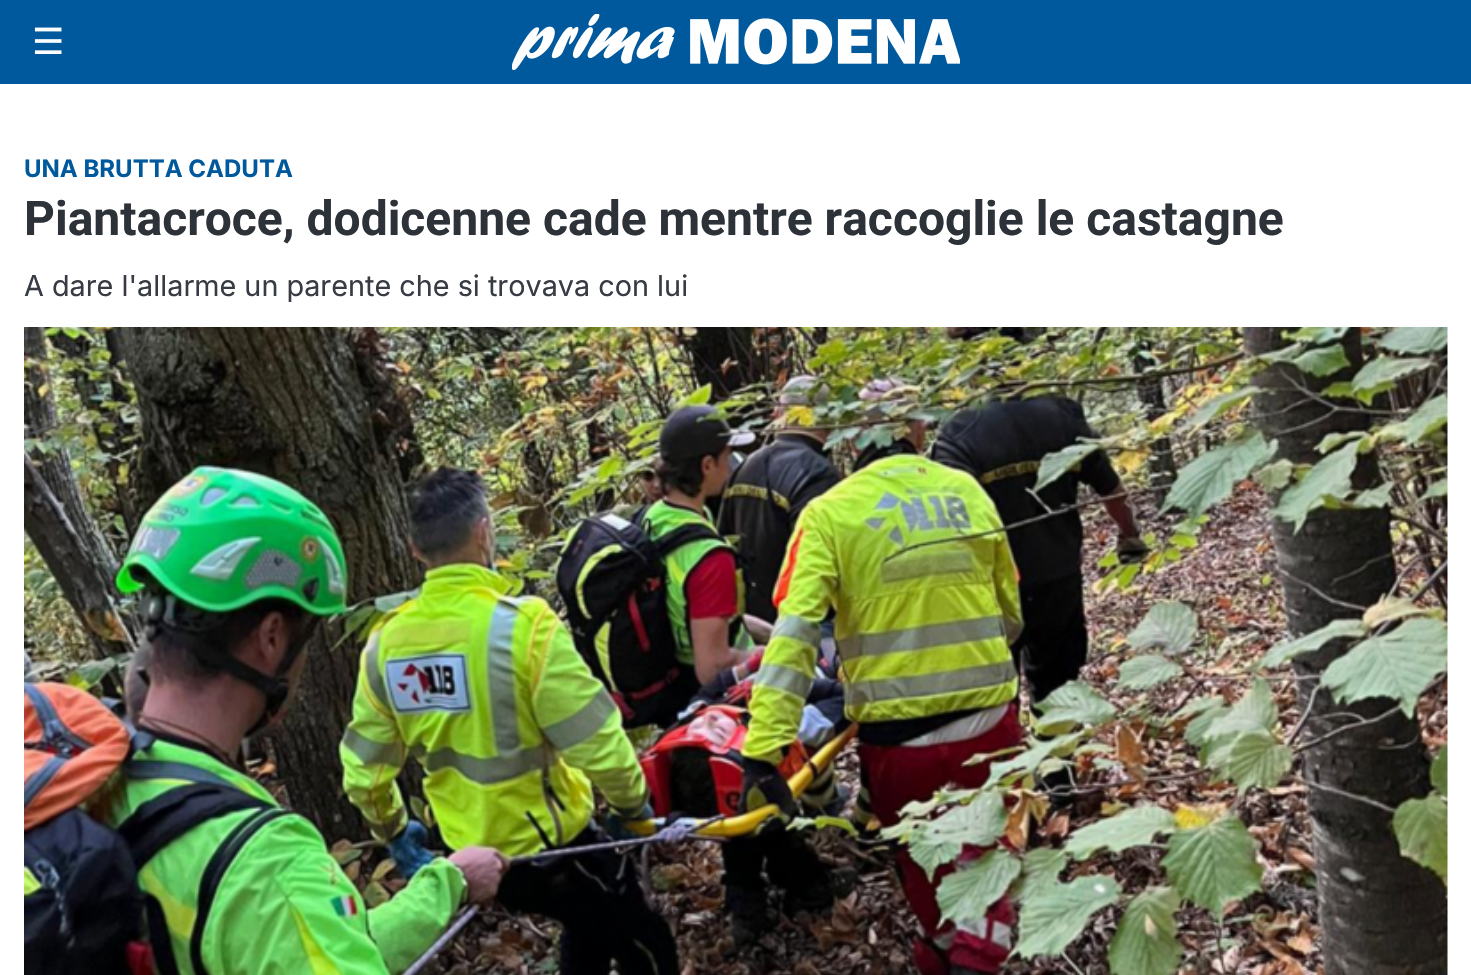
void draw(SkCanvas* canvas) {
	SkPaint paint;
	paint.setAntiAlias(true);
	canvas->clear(0xffffffff);
	paint.setColor(0xff00599c);
	canvas->drawRect(SkRect::MakeXYWH(0, 0, 1471, 84), paint);
	SkFont f1(fontMgr->matchFamilyStyle("DejaVu Sans", SkFontStyle::Normal()), 36);
	f1.setSubpixel(true);
	paint.setColor(0xffffffff);
	canvas->drawString("☰", 32, 54, f1, paint);
	canvas->drawImageRect(SkImages::DeferredFromEncodedData(SkData::MakeFromFileName("img1.png")), SkRect::MakeXYWH(512, 14, 448, 56), SkSamplingOptions());
	SkFont f2(fontMgr->matchFamilyStyle("Inter", SkFontStyle::Bold()), 24);
	f2.setSubpixel(true);
	paint.setColor(0xff00599c);
	canvas->drawString("UNA BRUTTA CADUTA", 24, 177, f2, paint);
	SkFont f3(fontMgr->matchFamilyStyle("Roboto", SkFontStyle::Bold()), 48);
	f3.setSubpixel(true);
	paint.setColor(0xff2d3138);
	canvas->drawString("Piantacroce, dodicenne cade mentre raccoglie le castagne", 24, 235, f3, paint);
	SkFont f4(fontMgr->matchFamilyStyle("Inter", SkFontStyle::Normal()), 28.8);
	f4.setSubpixel(true);
	paint.setColor(0xff373c44);
	canvas->drawString("A dare l'allarme un parente che si trovava con lui", 24, 296, f4, paint);
	canvas->drawImageRect(SkImages::DeferredFromEncodedData(SkData::MakeFromFileName("img2.png")), SkRect::MakeXYWH(24, 327, 1424, 648), SkSamplingOptions());
}
